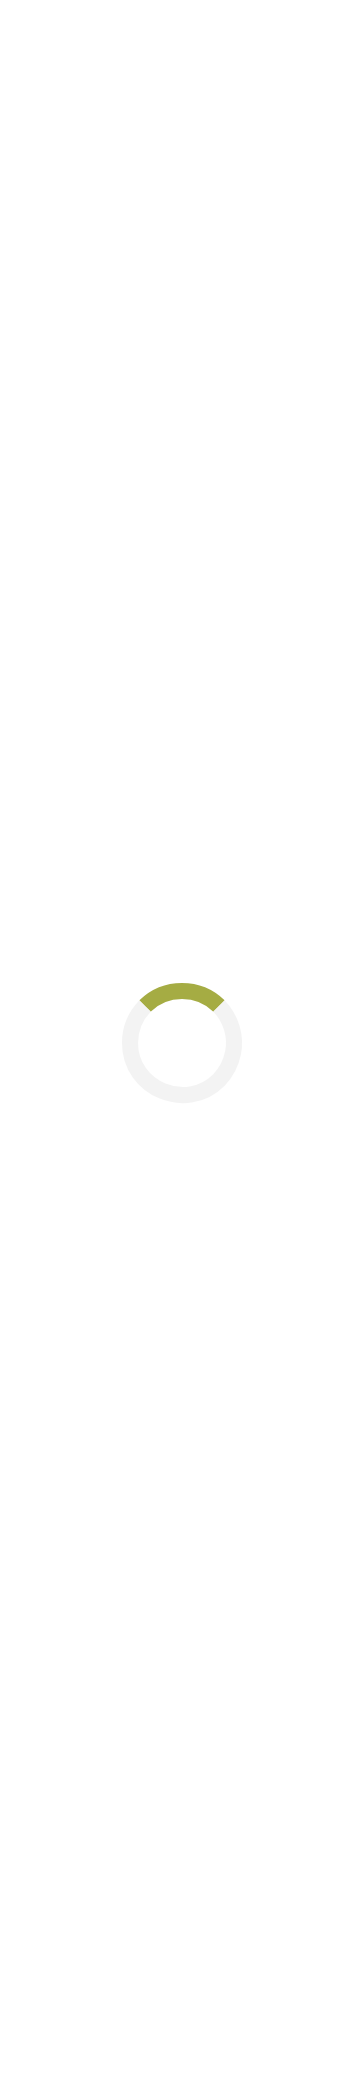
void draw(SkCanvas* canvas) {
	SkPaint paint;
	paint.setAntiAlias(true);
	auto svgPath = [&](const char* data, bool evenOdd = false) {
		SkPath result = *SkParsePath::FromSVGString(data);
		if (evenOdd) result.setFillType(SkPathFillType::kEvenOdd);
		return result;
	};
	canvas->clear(0xffffffff);
	paint.setStroke(true);
	paint.setStrokeWidth(16);
	paint.setColor(0xffa5ac43);
	canvas->drawPath(svgPath("M145 1006C165.5 986 198.5 986 219 1006"), paint);
	paint.setColor(0xfff3f3f3);
	canvas->drawPath(svgPath("M219 1006C231 1018.5 236.5 1036.5 233 1053C231 1063 226 1072.5 219 1080C186.5 1112.5 130 1089 130 1043C130 1029.5 135.5 1016 145 1006"), paint);
}
